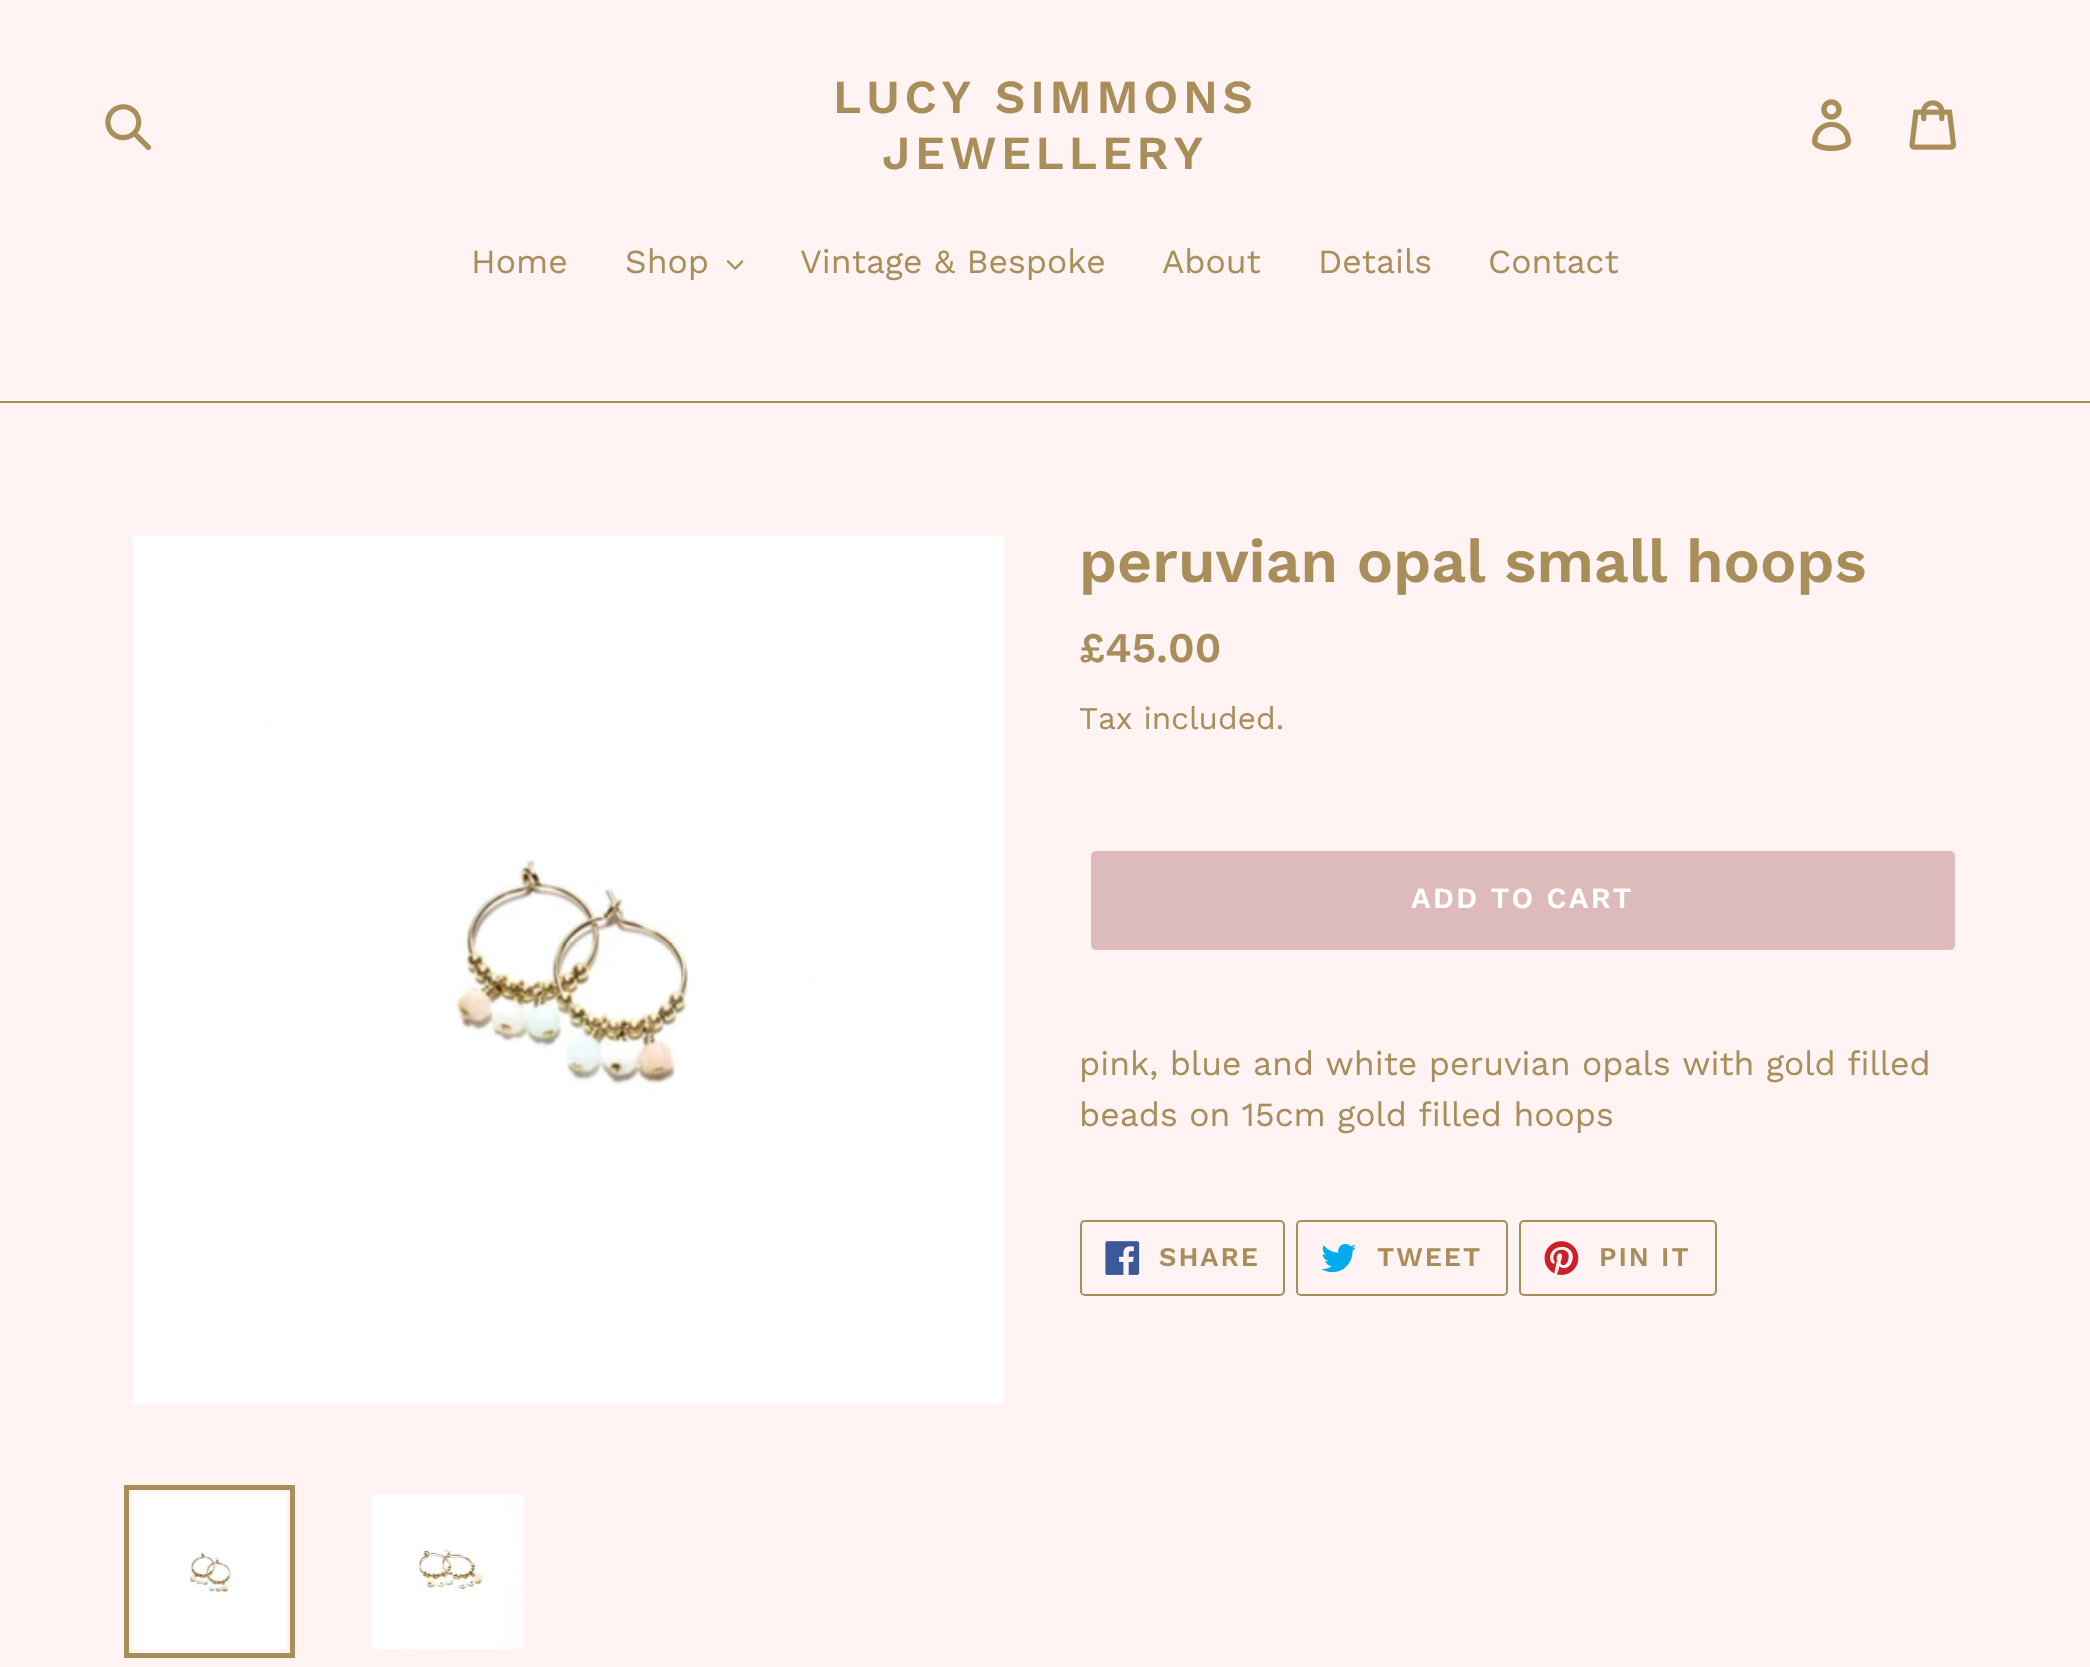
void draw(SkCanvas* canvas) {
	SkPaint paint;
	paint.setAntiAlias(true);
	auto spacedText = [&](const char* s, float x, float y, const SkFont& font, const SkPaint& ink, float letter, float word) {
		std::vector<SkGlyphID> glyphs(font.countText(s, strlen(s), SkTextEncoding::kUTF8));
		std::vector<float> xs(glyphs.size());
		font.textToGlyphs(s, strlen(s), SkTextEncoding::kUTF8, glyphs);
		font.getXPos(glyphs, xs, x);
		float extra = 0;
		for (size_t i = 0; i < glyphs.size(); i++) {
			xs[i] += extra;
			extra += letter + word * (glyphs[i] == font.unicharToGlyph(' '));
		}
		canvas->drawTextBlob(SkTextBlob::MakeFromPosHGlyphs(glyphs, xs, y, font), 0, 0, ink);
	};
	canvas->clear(0xfffff3f4);
	canvas->drawImageRect(SkImages::DeferredFromEncodedData(SkData::MakeFromFileName("img1.png")), SkRect::MakeXYWH(105, 104, 47, 47), SkSamplingOptions());
	SkFont f1(fontMgr->matchFamilyStyle("Work Sans", SkFontStyle(600, SkFontStyle::kNormal_Width, SkFontStyle::kUpright_Slant)), 47.25);
	f1.setSubpixel(true);
	paint.setColor(0xffa98e5a);
	spacedText("LUCY SIMMONS", 833, 113, f1, paint, 4.75, 0);
	spacedText("JEWELLERY", 882, 169, f1, paint, 4.75, 0);
	canvas->drawImageRect(SkImages::DeferredFromEncodedData(SkData::MakeFromFileName("img2.png")), SkRect::MakeXYWH(1812, 99, 39, 52), SkSamplingOptions());
	canvas->drawImageRect(SkImages::DeferredFromEncodedData(SkData::MakeFromFileName("img3.png")), SkRect::MakeXYWH(1909, 100, 48, 50), SkSamplingOptions());
	canvas->drawRect(SkRect::MakeXYWH(0, 401, 2090, 2), paint);
	SkFont f2(fontMgr->matchFamilyStyle("Work Sans", SkFontStyle::Normal()), 33.75);
	f2.setSubpixel(true);
	canvas->drawString("Home", 471, 273, f2, paint);
	canvas->drawString("Shop", 625, 273, f2, paint);
	canvas->drawImageRect(SkImages::DeferredFromEncodedData(SkData::MakeFromFileName("img4.png")), SkRect::MakeXYWH(727, 260, 16, 10), SkSamplingOptions());
	canvas->drawString("Vintage & Bespoke", 800, 273, f2, paint);
	canvas->drawString("About", 1162, 273, f2, paint);
	canvas->drawString("Details", 1318, 273, f2, paint);
	canvas->drawString("Contact", 1488, 273, f2, paint);
	canvas->drawImageRect(SkImages::DeferredFromEncodedData(SkData::MakeFromFileName("img5.png")), SkRect::MakeXYWH(133, 535, 871, 869), SkSamplingOptions());
	paint.setStroke(true);
	paint.setStrokeWidth(5);
	canvas->drawRect(SkRect::MakeXYWH(126.5, 1487.5, 166, 168), paint);
	canvas->drawImageRect(SkImages::DeferredFromEncodedData(SkData::MakeFromFileName("img6.png")), SkRect::MakeXYWH(133, 1494, 153, 155), SkSamplingOptions());
	canvas->drawImageRect(SkImages::DeferredFromEncodedData(SkData::MakeFromFileName("img7.png")), SkRect::MakeXYWH(371, 1494, 154, 155), SkSamplingOptions());
	SkFont f3(fontMgr->matchFamilyStyle("Work Sans", SkFontStyle(600, SkFontStyle::kNormal_Width, SkFontStyle::kUpright_Slant)), 60.75);
	f3.setSubpixel(true);
	paint.setStroke(false);
	canvas->drawString("peruvian opal small hoops", 1079, 582, f3, paint);
	SkFont f4(fontMgr->matchFamilyStyle("Work Sans", SkFontStyle(600, SkFontStyle::kNormal_Width, SkFontStyle::kUpright_Slant)), 42);
	f4.setSubpixel(true);
	canvas->drawString("£45.00", 1079, 662, f4, paint);
	SkFont f5(fontMgr->matchFamilyStyle("Work Sans", SkFontStyle::Normal()), 31.5);
	f5.setSubpixel(true);
	canvas->drawString("Tax included.", 1079, 729, f5, paint);
	paint.setColor(0xffdebbbb);
	canvas->drawRoundRect(SkRect::MakeXYWH(1091, 851, 864, 99), 5, 5, paint);
	SkFont f6(fontMgr->matchFamilyStyle("Work Sans", SkFontStyle(600, SkFontStyle::kNormal_Width, SkFontStyle::kUpright_Slant)), 29.25);
	f6.setSubpixel(true);
	paint.setColor(0xffffffff);
	spacedText("ADD TO CART", 1411, 908, f6, paint, 2.25, 0);
	paint.setColor(0xffa98e5a);
	canvas->drawString("pink, blue and white peruvian opals with gold filled", 1079, 1075, f2, paint);
	canvas->drawString("beads on 15cm gold filled hoops", 1079, 1126, f2, paint);
	paint.setStroke(true);
	paint.setStrokeWidth(2);
	canvas->drawRoundRect(SkRect::MakeXYWH(1081, 1221, 203, 74), 4, 4, paint);
	canvas->drawImageRect(SkImages::DeferredFromEncodedData(SkData::MakeFromFileName("img8.png")), SkRect::MakeXYWH(1105, 1241, 35, 34), SkSamplingOptions());
	SkFont f7(fontMgr->matchFamilyStyle("Work Sans", SkFontStyle(600, SkFontStyle::kNormal_Width, SkFontStyle::kUpright_Slant)), 27);
	f7.setSubpixel(true);
	paint.setStroke(false);
	spacedText("SHARE", 1159, 1266, f7, paint, 2, 0);
	paint.setStroke(true);
	canvas->drawRoundRect(SkRect::MakeXYWH(1297, 1221, 210, 74), 4, 4, paint);
	canvas->drawImageRect(SkImages::DeferredFromEncodedData(SkData::MakeFromFileName("img9.png")), SkRect::MakeXYWH(1321, 1244, 35, 29), SkSamplingOptions());
	paint.setStroke(false);
	spacedText("TWEET", 1377, 1266, f7, paint, 2, 0);
	paint.setStroke(true);
	canvas->drawRoundRect(SkRect::MakeXYWH(1520, 1221, 196, 74), 4, 4, paint);
	canvas->drawImageRect(SkImages::DeferredFromEncodedData(SkData::MakeFromFileName("img10.png")), SkRect::MakeXYWH(1544, 1241, 35, 34), SkSamplingOptions());
	paint.setStroke(false);
	spacedText("PIN IT", 1599, 1266, f7, paint, 2, 0);
}
